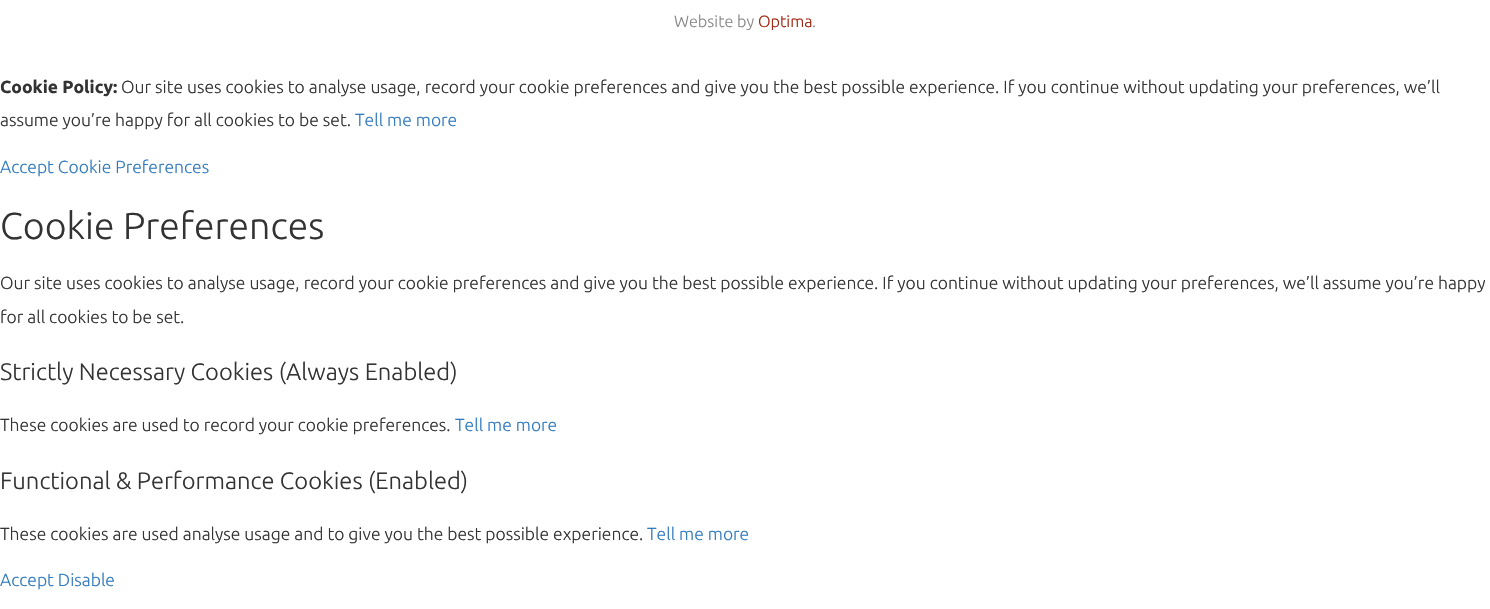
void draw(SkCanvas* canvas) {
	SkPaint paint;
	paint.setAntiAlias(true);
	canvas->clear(0xffffffff);
	SkFont f1(fontMgr->matchFamilyStyle("Ubuntu", SkFontStyle(300, SkFontStyle::kNormal_Width, SkFontStyle::kUpright_Slant)), 16.25);
	f1.setSubpixel(true);
	paint.setColor(0xff888888);
	canvas->drawString("Website by", 674, 27, f1, paint);
	paint.setColor(0xffa0220d);
	canvas->drawString("Optima", 758, 27, f1, paint);
	paint.setColor(0xff888888);
	canvas->drawString(".", 812, 27, f1, paint);
	SkFont f2(fontMgr->matchFamilyStyle("Ubuntu", SkFontStyle::Bold()), 17.5);
	f2.setSubpixel(true);
	paint.setColor(0xff333333);
	canvas->drawString("Cookie Policy:", 0, 93, f2, paint);
	SkFont f3(fontMgr->matchFamilyStyle("Ubuntu", SkFontStyle(300, SkFontStyle::kNormal_Width, SkFontStyle::kUpright_Slant)), 17.5);
	f3.setSubpixel(true);
	canvas->drawString("Our site uses cookies to analyse usage, record your cookie preferences and give you the best possible experience. If you continue without updating your preferences, we’ll", 121, 93, f3, paint);
	canvas->drawString("assume you’re happy for all cookies to be set.", 0, 126, f3, paint);
	paint.setColor(0xff307abf);
	canvas->drawString("Tell me more", 355, 126, f3, paint);
	canvas->drawString("Accept Cookie Preferences", 0, 173, f3, paint);
	SkFont f4(fontMgr->matchFamilyStyle("Ubuntu", SkFontStyle(300, SkFontStyle::kNormal_Width, SkFontStyle::kUpright_Slant)), 37.5);
	f4.setSubpixel(true);
	paint.setColor(0xff333333);
	canvas->drawString("Cookie Preferences", 0, 239, f4, paint);
	canvas->drawString("Our site uses cookies to analyse usage, record your cookie preferences and give you the best possible experience. If you continue without updating your preferences, we’ll assume you’re happy", 0, 289, f3, paint);
	canvas->drawString("for all cookies to be set.", 0, 323, f3, paint);
	SkFont f5(fontMgr->matchFamilyStyle("Ubuntu", SkFontStyle(300, SkFontStyle::kNormal_Width, SkFontStyle::kUpright_Slant)), 23.75);
	f5.setSubpixel(true);
	canvas->drawString("Strictly Necessary Cookies (Always Enabled)", 0, 380, f5, paint);
	canvas->drawString("These cookies are used to record your cookie preferences.", 0, 431, f3, paint);
	paint.setColor(0xff307abf);
	canvas->drawString("Tell me more", 455, 431, f3, paint);
	paint.setColor(0xff333333);
	canvas->drawString("Functional & Performance Cookies (Enabled)", 0, 489, f5, paint);
	canvas->drawString("These cookies are used analyse usage and to give you the best possible experience.", 0, 540, f3, paint);
	paint.setColor(0xff307abf);
	canvas->drawString("Tell me more", 647, 540, f3, paint);
	canvas->drawString("Accept Disable", 0, 586, f3, paint);
}
